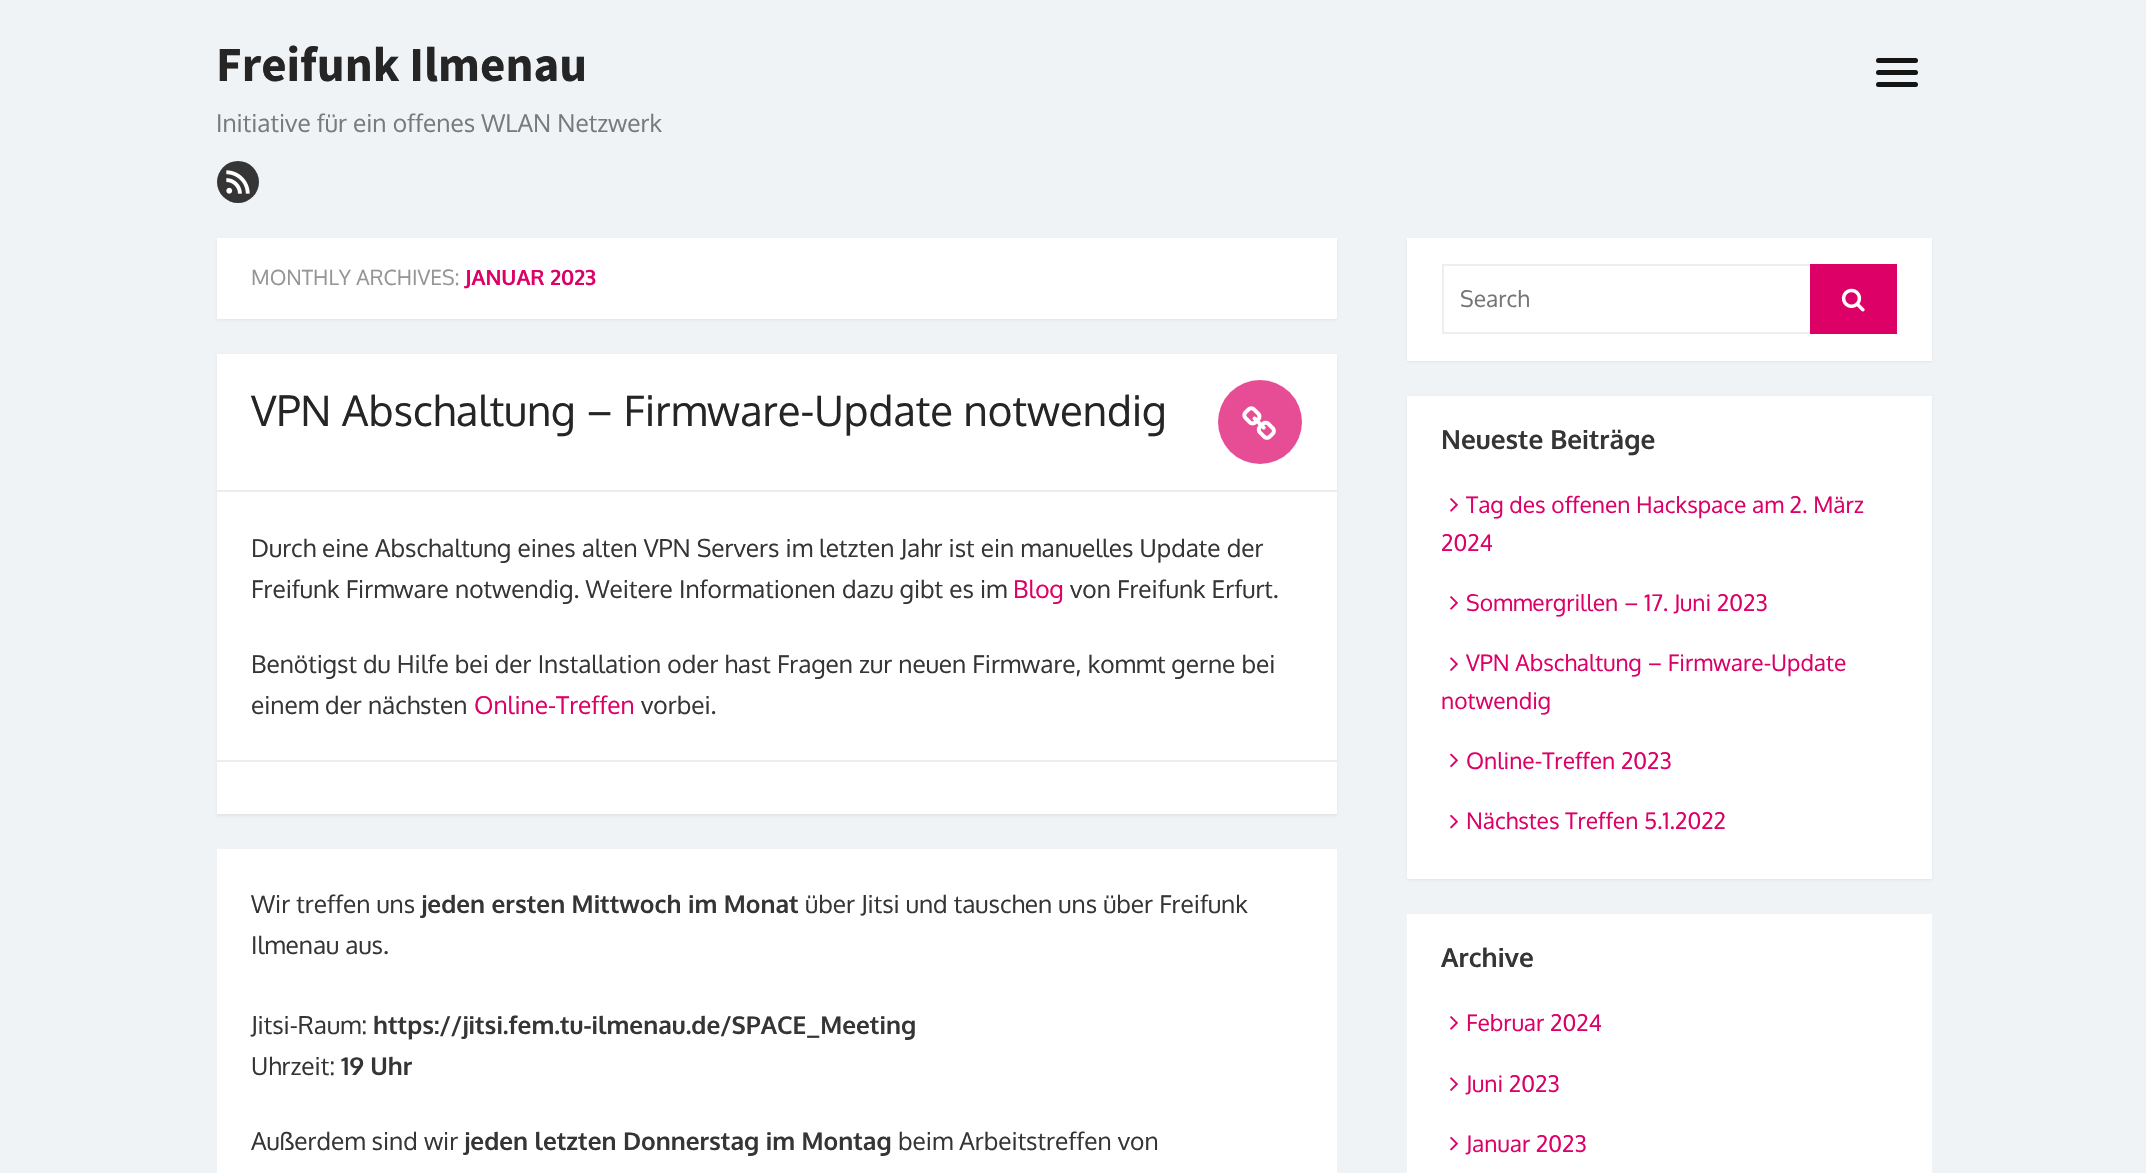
void draw(SkCanvas* canvas) {
	SkPaint paint;
	paint.setAntiAlias(true);
	canvas->clear(0xfff0f3f5);
	SkFont f1(fontMgr->matchFamilyStyle("Source Sans Pro", SkFontStyle::Bold()), 49);
	f1.setSubpixel(true);
	paint.setColor(0xff252525);
	canvas->drawString("Freifunk Ilmenau", 216, 81, f1, paint);
	SkFont f2(fontMgr->matchFamilyStyle("Oxygen", SkFontStyle::Normal()), 24.5);
	f2.setSubpixel(true);
	paint.setColor(0xff787a7b);
	canvas->drawString("Initiative für ein offenes WLAN Netzwerk", 216, 132, f2, paint);
	paint.setColor(0xff353535);
	canvas->drawCircle(238, 182, 21, paint);
	canvas->drawImageRect(SkImages::DeferredFromEncodedData(SkData::MakeFromFileName("img1.png")), SkRect::MakeXYWH(226, 170, 24, 24), SkSamplingOptions());
	paint.setColor(0xff151515);
	canvas->drawRoundRect(SkRect::MakeXYWH(1876, 70, 42, 5), 2.5, 2.5, paint);
	canvas->drawRoundRect(SkRect::MakeXYWH(1876, 58, 42, 5), 2.5, 2.5, paint);
	canvas->drawRoundRect(SkRect::MakeXYWH(1876, 82, 42, 5), 2.5, 2.5, paint);
	paint.setColor(0x0f000000);
	paint.setMaskFilter(SkMaskFilter::MakeBlur(kNormal_SkBlurStyle, 1));
	canvas->drawRect(SkRect::MakeXYWH(217, 240, 1120, 80), paint);
	paint.setMaskFilter(nullptr);
	paint.setColor(0xffffffff);
	canvas->drawRect(SkRect::MakeXYWH(217, 238, 1120, 81), paint);
	SkFont f3(fontMgr->matchFamilyStyle("Oxygen", SkFontStyle::Normal()), 21);
	f3.setSubpixel(true);
	paint.setColor(0xff959595);
	canvas->drawString("MONTHLY ARCHIVES:", 251, 285, f3, paint);
	SkFont f4(fontMgr->matchFamilyStyle("Oxygen", SkFontStyle::Bold()), 21);
	f4.setSubpixel(true);
	paint.setColor(0xffdc0067);
	canvas->drawString("JANUAR 2023", 465, 285, f4, paint);
	paint.setColor(0x0f000000);
	paint.setMaskFilter(SkMaskFilter::MakeBlur(kNormal_SkBlurStyle, 1));
	canvas->drawRect(SkRect::MakeXYWH(217, 355, 1120, 461), paint);
	paint.setMaskFilter(nullptr);
	paint.setColor(0xffffffff);
	canvas->drawRect(SkRect::MakeXYWH(217, 354, 1120, 460), paint);
	paint.setColor(0xffededed);
	canvas->drawRect(SkRect::MakeXYWH(217, 490, 1120, 2), paint);
	SkFont f5(fontMgr->matchFamilyStyle("Oxygen", SkFontStyle::Normal()), 42);
	f5.setSubpixel(true);
	paint.setColor(0xff252525);
	canvas->drawString("VPN Abschaltung – Firmware-Update notwendig", 251, 426, f5, paint);
	paint.setColor(0xffe74d95);
	canvas->drawCircle(1260, 422, 42, paint);
	canvas->drawImageRect(SkImages::DeferredFromEncodedData(SkData::MakeFromFileName("img2.png")), SkRect::MakeXYWH(1242, 406, 34, 34), SkSamplingOptions());
	paint.setColor(0xff353535);
	canvas->drawString("Durch eine Abschaltung eines alten VPN Servers im letzten Jahr ist ein manuelles Update der", 251, 557, f2, paint);
	canvas->drawString("Freifunk Firmware notwendig. Weitere Informationen dazu gibt es im", 251, 598, f2, paint);
	paint.setColor(0xffdc0067);
	canvas->drawString("Blog", 1013, 598, f2, paint);
	paint.setColor(0xff353535);
	canvas->drawString("von Freifunk Erfurt.", 1070, 598, f2, paint);
	canvas->drawString("Benötigst du Hilfe bei der Installation oder hast Fragen zur neuen Firmware, kommt gerne bei", 251, 673, f2, paint);
	canvas->drawString("einem der nächsten", 251, 714, f2, paint);
	paint.setColor(0xffdc0067);
	canvas->drawString("Online-Treffen", 474, 714, f2, paint);
	paint.setColor(0xff353535);
	canvas->drawString("vorbei.", 641, 714, f2, paint);
	paint.setColor(0xffededed);
	canvas->drawRect(SkRect::MakeXYWH(217, 760, 1120, 2), paint);
	paint.setColor(0xffffffff);
	canvas->drawRect(SkRect::MakeXYWH(217, 849, 1120, 324), paint);
	paint.setColor(0xff353535);
	canvas->drawString("Wir treffen uns", 251, 913, f2, paint);
	SkFont f6(fontMgr->matchFamilyStyle("Oxygen", SkFontStyle::Bold()), 24.5);
	f6.setSubpixel(true);
	canvas->drawString("jeden ersten Mittwoch im Monat", 421, 913, f6, paint);
	canvas->drawString("über Jitsi und tauschen uns über Freifunk", 805, 913, f2, paint);
	canvas->drawString("Ilmenau aus.", 251, 954, f2, paint);
	canvas->drawString("Jitsi-Raum:", 251, 1034, f2, paint);
	canvas->drawString("https://jitsi.fem.tu-ilmenau.de/SPACE_Meeting", 373, 1034, f6, paint);
	canvas->drawString("Uhrzeit:", 251, 1075, f2, paint);
	canvas->drawString("19 Uhr", 341, 1075, f6, paint);
	canvas->drawString("Außerdem sind wir", 251, 1150, f2, paint);
	canvas->drawString("jeden letzten Donnerstag im Montag", 464, 1150, f6, paint);
	canvas->drawString("beim Arbeitstreffen von", 898, 1150, f2, paint);
	paint.setColor(0x0f000000);
	paint.setMaskFilter(SkMaskFilter::MakeBlur(kNormal_SkBlurStyle, 1));
	canvas->drawRect(SkRect::MakeXYWH(1407, 240, 525, 122), paint);
	paint.setMaskFilter(nullptr);
	paint.setColor(0xffffffff);
	canvas->drawRect(SkRect::MakeXYWH(1407, 238, 525, 123), paint);
	paint.setStroke(true);
	paint.setStrokeWidth(2);
	paint.setColor(0xffeeeeee);
	canvas->drawRect(SkRect::MakeXYWH(1443, 265, 453, 68), paint);
	SkFont f7(fontMgr->matchFamilyStyle("Oxygen", SkFontStyle::Normal()), 22.75);
	f7.setSubpixel(true);
	paint.setStroke(false);
	paint.setColor(0xff757575);
	canvas->drawString("Search", 1460, 307, f7, paint);
	paint.setColor(0xffdc0067);
	canvas->drawRect(SkRect::MakeXYWH(1810, 264, 87, 70), paint);
	canvas->drawImageRect(SkImages::DeferredFromEncodedData(SkData::MakeFromFileName("img3.png")), SkRect::MakeXYWH(1841, 288, 24, 24), SkSamplingOptions());
	paint.setColor(0x0f000000);
	paint.setMaskFilter(SkMaskFilter::MakeBlur(kNormal_SkBlurStyle, 1));
	canvas->drawRect(SkRect::MakeXYWH(1407, 397, 525, 483), paint);
	paint.setMaskFilter(nullptr);
	paint.setColor(0xffffffff);
	canvas->drawRect(SkRect::MakeXYWH(1407, 396, 525, 483), paint);
	SkFont f8(fontMgr->matchFamilyStyle("Oxygen", SkFontStyle::Bold()), 26.25);
	f8.setSubpixel(true);
	paint.setColor(0xff353535);
	canvas->drawString("Neueste Beiträge", 1441, 449, f8, paint);
	canvas->drawImageRect(SkImages::DeferredFromEncodedData(SkData::MakeFromFileName("img4.png")), SkRect::MakeXYWH(1450, 498, 8, 14), SkSamplingOptions());
	paint.setColor(0xffdc0067);
	canvas->drawString("Tag des offenen Hackspace am 2. März", 1466, 513, f7, paint);
	canvas->drawString("2024", 1441, 551, f7, paint);
	canvas->drawImageRect(SkImages::DeferredFromEncodedData(SkData::MakeFromFileName("img4.png")), SkRect::MakeXYWH(1450, 596, 8, 14), SkSamplingOptions());
	canvas->drawString("Sommergrillen – 17. Juni 2023", 1466, 611, f7, paint);
	canvas->drawImageRect(SkImages::DeferredFromEncodedData(SkData::MakeFromFileName("img5.png")), SkRect::MakeXYWH(1450, 657, 8, 14), SkSamplingOptions());
	canvas->drawString("VPN Abschaltung – Firmware-Update", 1466, 671, f7, paint);
	canvas->drawString("notwendig", 1441, 709, f7, paint);
	canvas->drawImageRect(SkImages::DeferredFromEncodedData(SkData::MakeFromFileName("img6.png")), SkRect::MakeXYWH(1450, 753, 8, 15), SkSamplingOptions());
	canvas->drawString("Online-Treffen 2023", 1466, 769, f7, paint);
	canvas->drawImageRect(SkImages::DeferredFromEncodedData(SkData::MakeFromFileName("img7.png")), SkRect::MakeXYWH(1450, 814, 8, 15), SkSamplingOptions());
	canvas->drawString("Nächstes Treffen 5.1.2022", 1466, 829, f7, paint);
	paint.setColor(0xffffffff);
	canvas->drawRect(SkRect::MakeXYWH(1407, 914, 525, 259), paint);
	paint.setColor(0xff353535);
	canvas->drawString("Archive", 1441, 967, f8, paint);
	canvas->drawImageRect(SkImages::DeferredFromEncodedData(SkData::MakeFromFileName("img4.png")), SkRect::MakeXYWH(1450, 1016, 8, 14), SkSamplingOptions());
	paint.setColor(0xffdc0067);
	canvas->drawString("Februar 2024", 1466, 1031, f7, paint);
	canvas->drawImageRect(SkImages::DeferredFromEncodedData(SkData::MakeFromFileName("img5.png")), SkRect::MakeXYWH(1450, 1077, 8, 14), SkSamplingOptions());
	canvas->drawString("Juni 2023", 1466, 1092, f7, paint);
	canvas->drawImageRect(SkImages::DeferredFromEncodedData(SkData::MakeFromFileName("img7.png")), SkRect::MakeXYWH(1450, 1136, 8, 15), SkSamplingOptions());
	canvas->drawString("Januar 2023", 1466, 1152, f7, paint);
}
